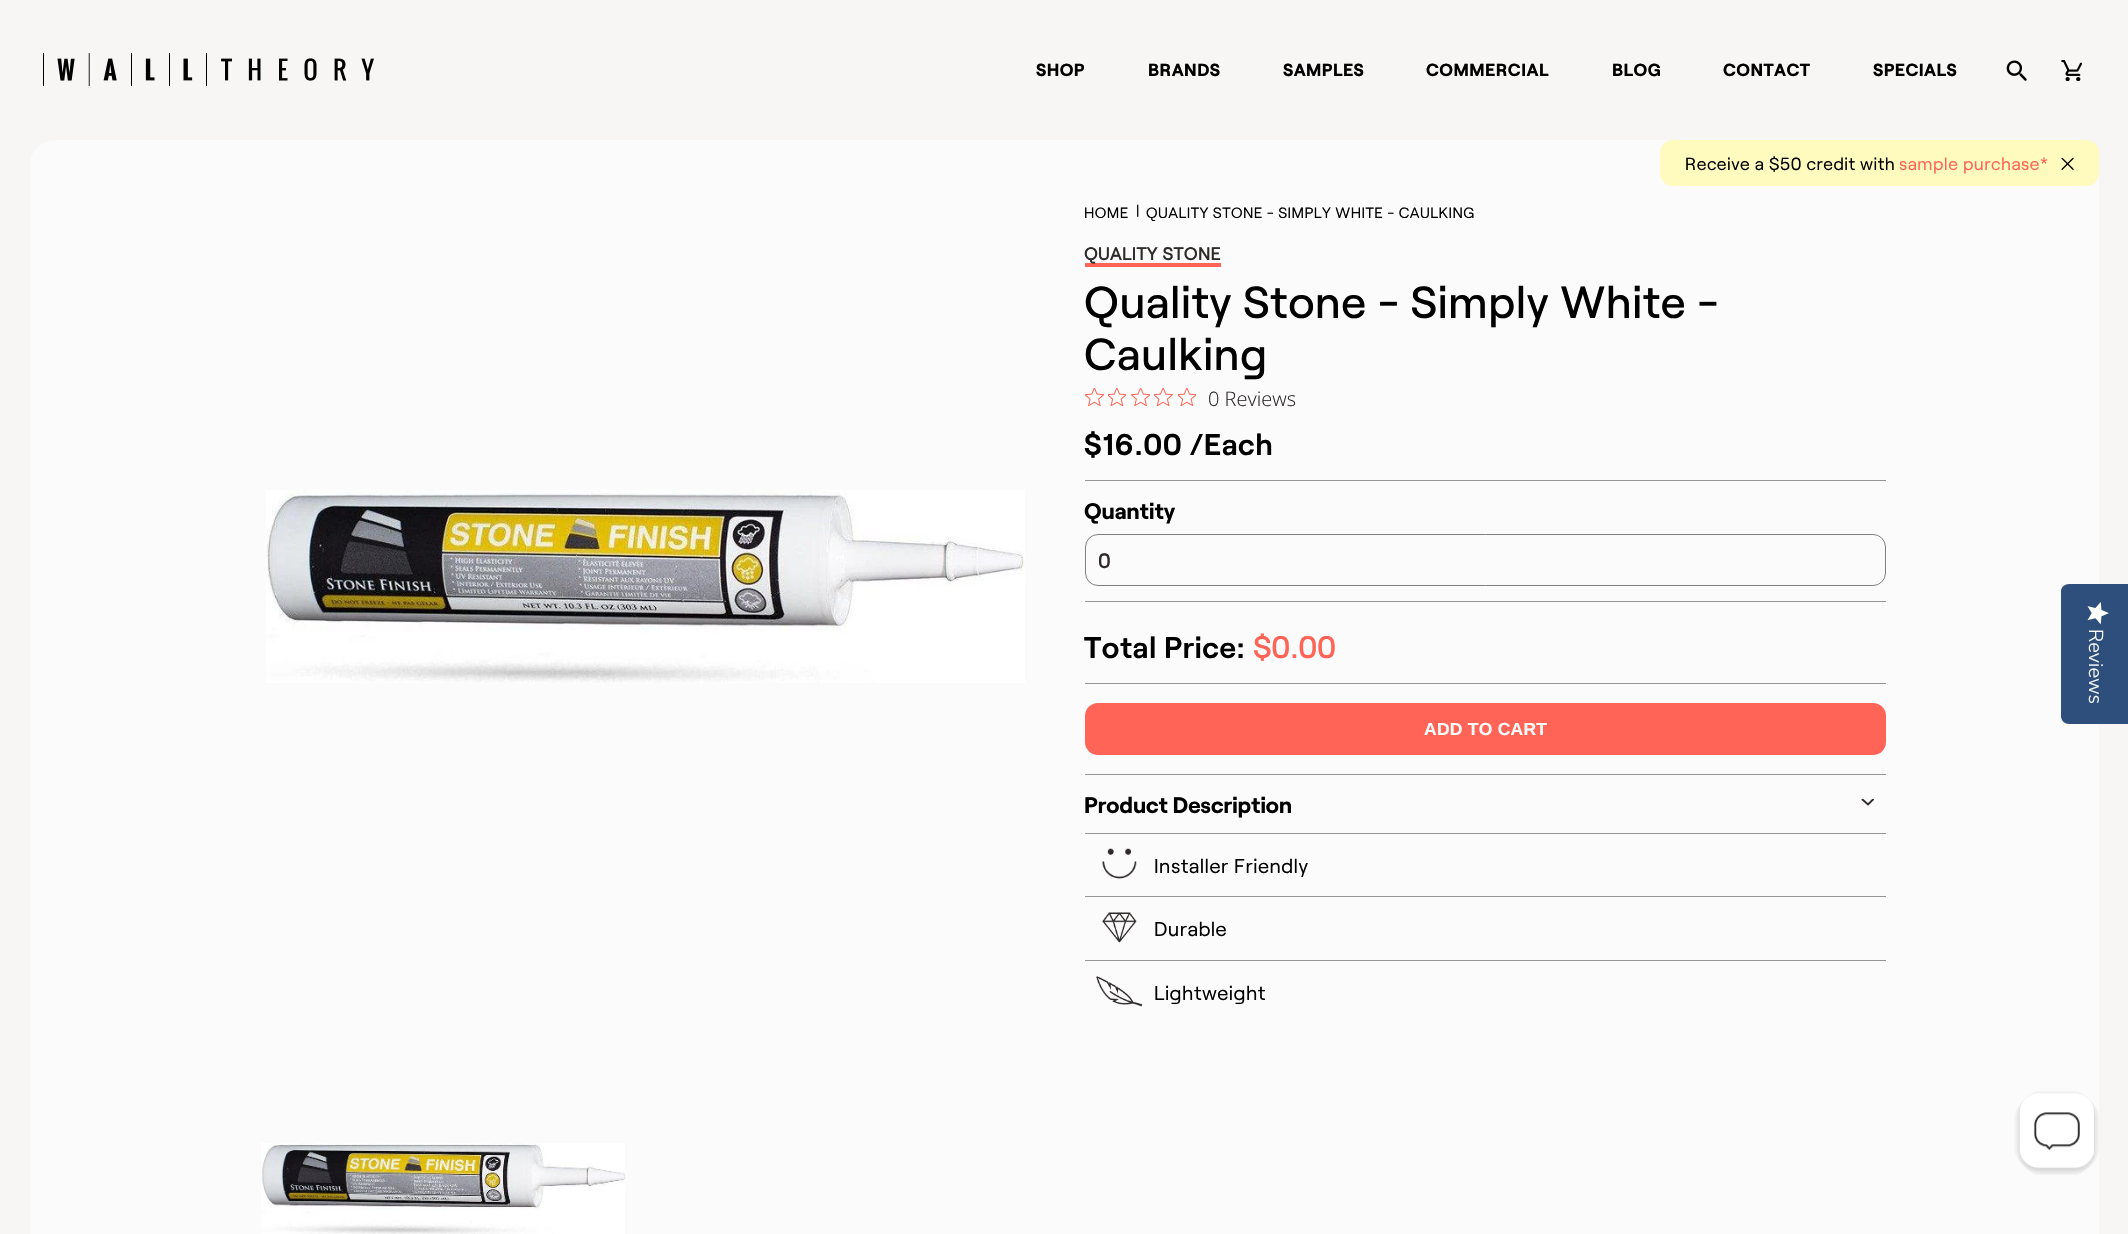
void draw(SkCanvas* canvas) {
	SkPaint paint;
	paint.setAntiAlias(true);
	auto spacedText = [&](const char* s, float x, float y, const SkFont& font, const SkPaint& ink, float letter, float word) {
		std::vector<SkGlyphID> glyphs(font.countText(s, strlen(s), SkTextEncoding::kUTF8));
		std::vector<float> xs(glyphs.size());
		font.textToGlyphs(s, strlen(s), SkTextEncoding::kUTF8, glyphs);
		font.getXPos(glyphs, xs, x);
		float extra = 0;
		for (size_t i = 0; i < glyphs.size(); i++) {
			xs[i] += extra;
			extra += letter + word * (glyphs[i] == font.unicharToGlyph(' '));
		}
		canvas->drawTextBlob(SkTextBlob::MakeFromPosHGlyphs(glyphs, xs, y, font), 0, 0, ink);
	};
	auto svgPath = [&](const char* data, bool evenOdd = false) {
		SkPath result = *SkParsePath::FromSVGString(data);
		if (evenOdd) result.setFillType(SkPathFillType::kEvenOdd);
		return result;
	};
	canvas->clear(0xfff7f6f5);
	canvas->drawImageRect(SkImages::DeferredFromEncodedData(SkData::MakeFromFileName("img1.png")), SkRect::MakeXYWH(43, 53, 331, 33), SkSamplingOptions());
	SkFont f1(fontMgr->matchFamilyStyle("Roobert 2", SkFontStyle::Bold()), 17.5);
	f1.setSubpixel(true);
	paint.setColor(0xff000000);
	spacedText("SHOP", 1036, 76, f1, paint, 0.45, 0);
	spacedText("BRANDS", 1148, 76, f1, paint, 0.45, 0);
	spacedText("SAMPLES", 1283, 76, f1, paint, 0.45, 0);
	spacedText("COMMERCIAL", 1426, 76, f1, paint, 0.45, 0);
	spacedText("BLOG", 1612, 76, f1, paint, 0.45, 0);
	spacedText("CONTACT", 1723, 76, f1, paint, 0.45, 0);
	spacedText("SPECIALS", 1873, 76, f1, paint, 0.45, 0);
	canvas->drawImageRect(SkImages::DeferredFromEncodedData(SkData::MakeFromFileName("img2.png")), SkRect::MakeXYWH(2006, 60, 21, 21), SkSamplingOptions());
	canvas->drawImageRect(SkImages::DeferredFromEncodedData(SkData::MakeFromFileName("img3.png")), SkRect::MakeXYWH(2061, 60, 21, 21), SkSamplingOptions());
	paint.setColor(0xfffbfbfb);
	canvas->drawRect(SkRect::MakeXYWH(30, 140, 2069, 1094), paint);
	paint.setColor(0xfff7f6f5);
	canvas->drawPath(svgPath("M55 115C41 115 30 126 30 140V165C30 151 41 140 55 140Z"), paint);
	canvas->drawPath(svgPath("M2074 115V140C2088 140 2099 151 2099 165V178V140C2099 126 2088 115 2074 115Z"), paint);
	paint.setColor(0xfffffabd);
	canvas->drawRoundRect(SkRect::MakeXYWH(1660, 140, 439, 46), 13, 13, paint);
	SkFont f2(fontMgr->matchFamilyStyle("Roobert", SkFontStyle::Normal()), 17.5);
	f2.setSubpixel(true);
	paint.setColor(0xff000000);
	spacedText("Receive a $50 credit with", 1685, 170, f2, paint, 0.45, 0);
	paint.setColor(0xffff6457);
	spacedText("sample purchase*", 1899, 170, f2, paint, 0.45, 0);
	canvas->drawImageRect(SkImages::DeferredFromEncodedData(SkData::MakeFromFileName("img4.png")), SkRect::MakeXYWH(2061, 158, 13, 12), SkSamplingOptions());
	canvas->drawImageRect(SkImages::DeferredFromEncodedData(SkData::MakeFromFileName("img5.png")), SkRect::MakeXYWH(266, 490, 759, 193), SkSamplingOptions());
	canvas->drawImageRect(SkImages::DeferredFromEncodedData(SkData::MakeFromFileName("img6.png")), SkRect::MakeXYWH(261, 1143, 364, 91), SkSamplingOptions());
	SkFont f3(fontMgr->matchFamilyStyle("Roobert", SkFontStyle::Normal()), 15);
	f3.setSubpixel(true);
	paint.setColor(0xff000000);
	spacedText("HOME", 1084, 218, f3, paint, 0.45, 0);
	spacedText("|", 1136, 216, f3, paint, 0.45, 0);
	spacedText("QUALITY STONE - SIMPLY WHITE - CAULKING", 1146, 218, f3, paint, 0.45, 0);
	paint.setColor(0xffff6457);
	canvas->drawRect(SkRect::MakeXYWH(1085, 263, 136, 4), paint);
	SkFont f4(fontMgr->matchFamilyStyle("Roobert", SkFontStyle::Bold()), 17.5);
	f4.setSubpixel(true);
	paint.setColor(0xff2f2a2a);
	spacedText("QUALITY STONE", 1084, 260, f4, paint, 0.6, 0);
	SkFont f5(fontMgr->matchFamilyStyle("Roobert", SkFontStyle(500, SkFontStyle::kNormal_Width, SkFontStyle::kUpright_Slant)), 45);
	f5.setSubpixel(true);
	paint.setColor(0xff000000);
	spacedText("Quality Stone - Simply White -", 1084, 318, f5, paint, 0.6, 0);
	spacedText("Caulking", 1084, 370, f5, paint, 0.6, 0);
	canvas->drawImageRect(SkImages::DeferredFromEncodedData(SkData::MakeFromFileName("img7.png")), SkRect::MakeXYWH(1085, 388, 19, 18), SkSamplingOptions());
	canvas->drawImageRect(SkImages::DeferredFromEncodedData(SkData::MakeFromFileName("img8.png")), SkRect::MakeXYWH(1108, 388, 18, 18), SkSamplingOptions());
	canvas->drawImageRect(SkImages::DeferredFromEncodedData(SkData::MakeFromFileName("img9.png")), SkRect::MakeXYWH(1131, 388, 19, 18), SkSamplingOptions());
	canvas->drawImageRect(SkImages::DeferredFromEncodedData(SkData::MakeFromFileName("img10.png")), SkRect::MakeXYWH(1154, 388, 19, 18), SkSamplingOptions());
	canvas->drawImageRect(SkImages::DeferredFromEncodedData(SkData::MakeFromFileName("img8.png")), SkRect::MakeXYWH(1178, 388, 18, 18), SkSamplingOptions());
	SkFont f6(fontMgr->matchFamilyStyle("Open Sans", SkFontStyle(300, SkFontStyle::kNormal_Width, SkFontStyle::kUpright_Slant)), 20);
	f6.setSubpixel(true);
	paint.setColor(0xff2f2a2a);
	canvas->drawString("0 Reviews", 1208, 406, f6, paint);
	SkFont f7(fontMgr->matchFamilyStyle("Roobert", SkFontStyle(600, SkFontStyle::kNormal_Width, SkFontStyle::kUpright_Slant)), 30);
	f7.setSubpixel(true);
	paint.setColor(0xff000000);
	spacedText("$16.00 /Each", 1084, 455, f7, paint, 0.6, 0);
	paint.setColor(0xff979494);
	canvas->drawRect(SkRect::MakeXYWH(1085, 480, 801, 1), paint);
	canvas->drawRect(SkRect::MakeXYWH(1085, 601, 801, 1), paint);
	SkFont f8(fontMgr->matchFamilyStyle("Roobert 2", SkFontStyle::Bold()), 22.5);
	f8.setSubpixel(true);
	paint.setColor(0xff000000);
	canvas->drawString("Quantity", 1084, 519, f8, paint);
	paint.setStroke(true);
	paint.setStrokeWidth(1);
	paint.setColor(0xff808080);
	canvas->drawRoundRect(SkRect::MakeXYWH(1085.5, 534.5, 800, 51), 12.5, 12.5, paint);
	SkFont f9(fontMgr->matchFamilyStyle("Roobert", SkFontStyle::Bold()), 20);
	f9.setSubpixel(true);
	paint.setStroke(false);
	paint.setColor(0xff2f2a2a);
	canvas->drawString("0", 1098, 568, f9, paint);
	paint.setColor(0xff000000);
	spacedText("Total Price:", 1084, 658, f7, paint, 0.6, 0);
	SkFont f10(fontMgr->matchFamilyStyle("Roobert", SkFontStyle::Bold()), 30);
	f10.setSubpixel(true);
	paint.setColor(0xffff6457);
	spacedText("$0.00", 1253, 658, f10, paint, 0.6, 0);
	paint.setColor(0xff979494);
	canvas->drawRect(SkRect::MakeXYWH(1085, 683, 801, 1), paint);
	paint.setColor(0xffff6457);
	canvas->drawRoundRect(SkRect::MakeXYWH(1085, 703, 801, 52), 13, 13, paint);
	SkFont f11(fontMgr->matchFamilyStyle("Liberation Sans", SkFontStyle::Bold()), 17.5);
	f11.setSubpixel(true);
	paint.setColor(0xfffbfbfb);
	spacedText("ADD TO CART", 1424, 735, f11, paint, 0.25, 0);
	paint.setColor(0xff979494);
	canvas->drawRect(SkRect::MakeXYWH(1085, 774, 801, 1), paint);
	paint.setColor(0xff000000);
	canvas->drawString("Product Description", 1084, 813, f8, paint);
	canvas->save();
	canvas->clipRect(SkRect::MakeXYWH(1861, 799, 13, 7));
	paint.setStroke(true);
	paint.setStrokeWidth(1.9);
	paint.setStrokeCap(SkPaint::kRound_Cap);
	paint.setColor(0xff2f2a2a);
	canvas->drawPath(svgPath("M1862.5 799.5L1868 804.5L1873 799.5"), paint);
	canvas->restore();
	paint.setStroke(false);
	paint.setColor(0xff979494);
	canvas->drawRect(SkRect::MakeXYWH(1085, 833, 801, 1), paint);
	canvas->drawImageRect(SkImages::DeferredFromEncodedData(SkData::MakeFromFileName("img11.png")), SkRect::MakeXYWH(1102, 848, 35, 31), SkSamplingOptions());
	SkFont f12(fontMgr->matchFamilyStyle("Roobert", SkFontStyle::Normal()), 20);
	f12.setSubpixel(true);
	paint.setColor(0xff000000);
	spacedText("Installer Friendly", 1154, 873, f12, paint, 0.45, 0);
	paint.setColor(0xff979494);
	canvas->drawRect(SkRect::MakeXYWH(1085, 896, 801, 1), paint);
	canvas->drawImageRect(SkImages::DeferredFromEncodedData(SkData::MakeFromFileName("img12.png")), SkRect::MakeXYWH(1102, 912, 35, 31), SkSamplingOptions());
	paint.setColor(0xff000000);
	spacedText("Durable", 1154, 936, f12, paint, 0.45, 0);
	paint.setColor(0xff979494);
	canvas->drawRect(SkRect::MakeXYWH(1085, 960, 801, 1), paint);
	canvas->drawImageRect(SkImages::DeferredFromEncodedData(SkData::MakeFromFileName("img13.png")), SkRect::MakeXYWH(1096, 976, 47, 31), SkSamplingOptions());
	paint.setColor(0xff000000);
	spacedText("Lightweight", 1154, 1000, f12, paint, 0.45, 0);
	paint.setColor(0xff2e4f7c);
	canvas->drawPath(svgPath("M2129 584V724H2069C2065 724 2061 721 2061 716V591C2061 587 2065 584 2069 584Z"), paint);
	canvas->drawImageRect(SkImages::DeferredFromEncodedData(SkData::MakeFromFileName("img14.png")), SkRect::MakeXYWH(2087, 602, 22, 23), SkSamplingOptions());
	SkFont f13(fontMgr->matchFamilyStyle("Nunito Sans", SkFontStyle(300, SkFontStyle::kNormal_Width, SkFontStyle::kUpright_Slant)), 20);
	f13.setSubpixel(true);
	paint.setColor(0xfffbfbfb);
	canvas->save();
	canvas->rotate(90, 2089, 629);
	canvas->drawString("Reviews", 2089, 629, f13, paint);
	canvas->restore();
	canvas->drawImageRect(SkImages::DeferredFromEncodedData(SkData::MakeFromFileName("img15.png")), SkRect::MakeXYWH(2014, 1091, 85, 84), SkSamplingOptions());
}
